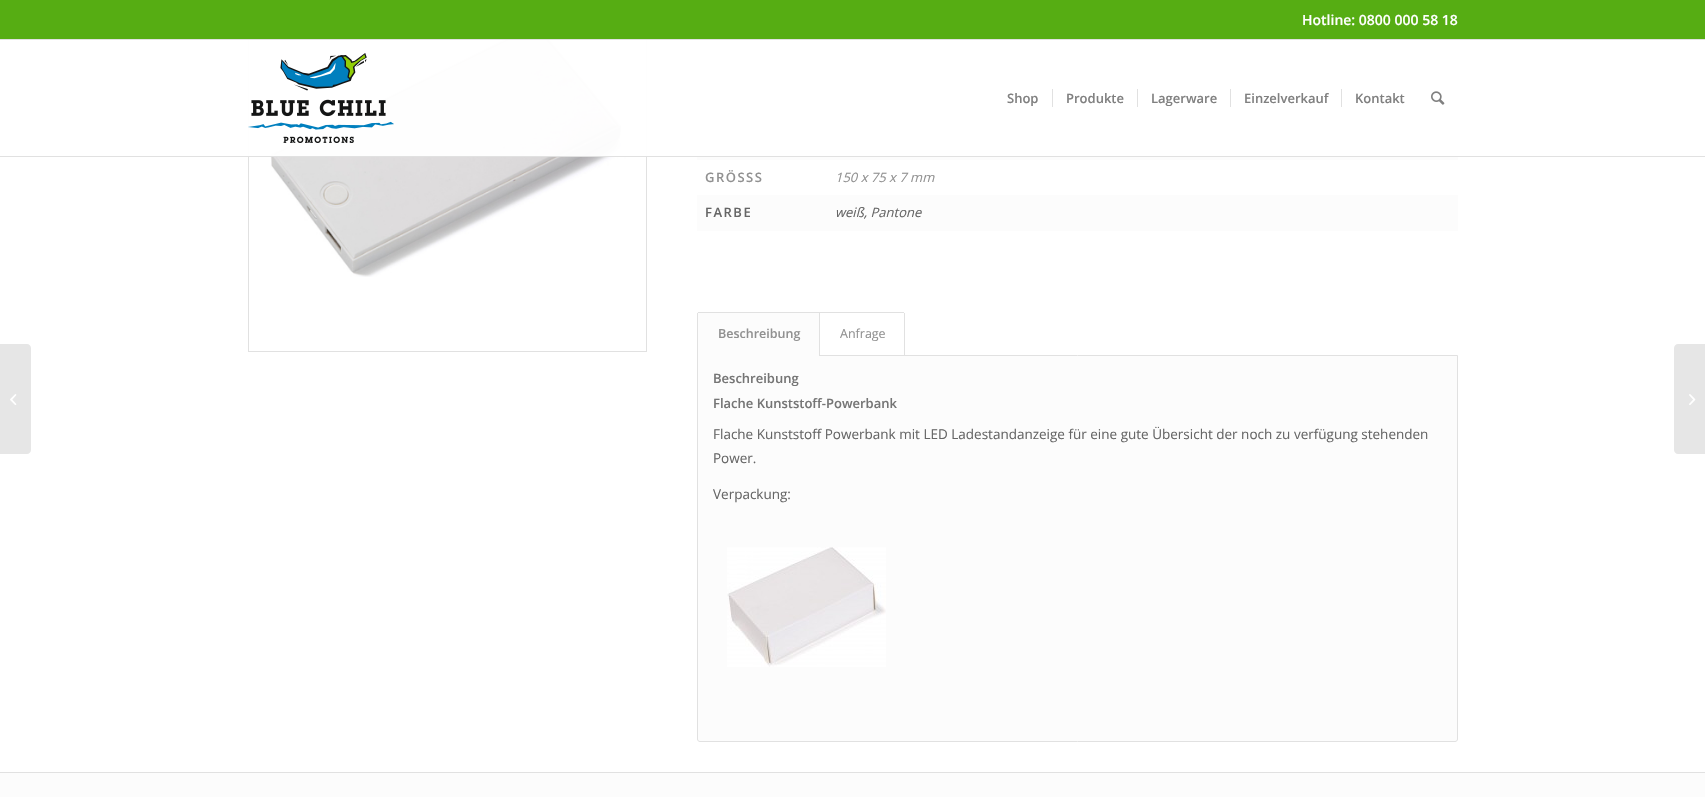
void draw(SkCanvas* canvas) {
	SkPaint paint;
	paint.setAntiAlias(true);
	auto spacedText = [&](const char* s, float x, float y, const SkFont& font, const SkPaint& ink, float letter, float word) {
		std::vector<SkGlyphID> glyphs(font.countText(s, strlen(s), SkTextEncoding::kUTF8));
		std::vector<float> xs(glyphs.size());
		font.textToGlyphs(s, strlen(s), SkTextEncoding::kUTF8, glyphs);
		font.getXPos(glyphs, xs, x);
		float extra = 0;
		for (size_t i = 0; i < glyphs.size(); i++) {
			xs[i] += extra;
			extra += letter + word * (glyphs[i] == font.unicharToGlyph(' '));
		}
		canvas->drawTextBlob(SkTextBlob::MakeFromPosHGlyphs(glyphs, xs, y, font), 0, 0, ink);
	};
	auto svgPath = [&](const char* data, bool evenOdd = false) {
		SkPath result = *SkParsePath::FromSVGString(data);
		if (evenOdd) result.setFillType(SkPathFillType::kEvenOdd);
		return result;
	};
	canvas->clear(0xffffffff);
	paint.setStroke(true);
	paint.setStrokeWidth(1);
	paint.setColor(0xffe1e1e1);
	canvas->drawRect(SkRect::MakeXYWH(248.5, -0.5, 398, 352), paint);
	paint.setStroke(false);
	paint.setColor(0xff56ad13);
	canvas->drawRect(SkRect::MakeXYWH(0, 0, 1705, 39), paint);
	paint.setColor(0xffe1e1e1);
	canvas->drawRect(SkRect::MakeXYWH(0, 39, 1705, 1), paint);
	SkFont f1(fontMgr->matchFamilyStyle("Open Sans", SkFontStyle(600, SkFontStyle::kNormal_Width, SkFontStyle::kUpright_Slant)), 14);
	f1.setSubpixel(true);
	paint.setColor(0xffffffff);
	canvas->drawString("Hotline: 0800 000 58 18", 1302, 25, f1, paint);
	canvas->drawImageRect(SkImages::DeferredFromEncodedData(SkData::MakeFromFileName("img4.png")), SkRect::MakeXYWH(270, 40, 358, 237), SkSamplingOptions());
	paint.setColor(0xfffcfcfc);
	canvas->drawRect(SkRect::MakeXYWH(697, 53, 761, 178), paint);
	paint.setColor(0xffffffff);
	canvas->drawRect(SkRect::MakeXYWH(697, 89, 761, 35), paint);
	paint.setColor(0xf2ffffff);
	canvas->drawRect(SkRect::MakeXYWH(248, 40, 1210, 116), paint);
	paint.setColor(0xffe1e1e1);
	canvas->drawRect(SkRect::MakeXYWH(0, 156, 1705, 1), paint);
	canvas->drawImageRect(SkImages::DeferredFromEncodedData(SkData::MakeFromFileName("img1.png")), SkRect::MakeXYWH(248, 53, 146, 90), SkSamplingOptions());
	SkFont f2(fontMgr->matchFamilyStyle("Open Sans", SkFontStyle(600, SkFontStyle::kNormal_Width, SkFontStyle::kUpright_Slant)), 13);
	f2.setSubpixel(true);
	paint.setColor(0xff808080);
	canvas->drawString("Shop", 1007, 103, f2, paint);
	canvas->drawString("Produkte", 1066, 103, f2, paint);
	paint.setColor(0xffe1e1e1);
	canvas->drawRect(SkRect::MakeXYWH(1052, 89, 1, 18), paint);
	paint.setColor(0xff808080);
	canvas->drawString("Lagerware", 1151, 103, f2, paint);
	paint.setColor(0xffe1e1e1);
	canvas->drawRect(SkRect::MakeXYWH(1137, 89, 1, 18), paint);
	paint.setColor(0xff808080);
	canvas->drawString("Einzelverkauf", 1244, 103, f2, paint);
	paint.setColor(0xffe1e1e1);
	canvas->drawRect(SkRect::MakeXYWH(1230, 89, 1, 18), paint);
	paint.setColor(0xff808080);
	canvas->drawString("Kontakt", 1355, 103, f2, paint);
	paint.setColor(0xffe1e1e1);
	canvas->drawRect(SkRect::MakeXYWH(1341, 89, 1, 18), paint);
	canvas->drawImageRect(SkImages::DeferredFromEncodedData(SkData::MakeFromFileName("img2.png")), SkRect::MakeXYWH(1431, 91, 14, 14), SkSamplingOptions());
	paint.setColor(0xffe6e6e6);
	canvas->drawPath(svgPath("M0 344H27C29 344 31 346 31 348V450C31 452 29 454 27 454H0Z"), paint);
	canvas->drawImageRect(SkImages::DeferredFromEncodedData(SkData::MakeFromFileName("img3.png")), SkRect::MakeXYWH(10, 394, 7, 11), SkSamplingOptions());
	paint.setColor(0xffffffff);
	canvas->drawRect(SkRect::MakeXYWH(697, 160, 761, 35), paint);
	paint.setColor(0xff919191);
	spacedText("GRÖSSS", 705, 182, f2, paint, 1.5, 0);
	SkFont f3(fontMgr->matchFamilyStyle("Open Sans", SkFontStyle::Italic()), 13);
	f3.setSubpixel(true);
	canvas->drawString("150 x 75 x 7 mm", 835, 182, f3, paint);
	paint.setColor(0xff666666);
	spacedText("FARBE", 705, 217, f2, paint, 1.5, 0);
	canvas->drawString("weiß, Pantone", 835, 217, f3, paint);
	paint.setColor(0xfffcfcfc);
	canvas->drawPath(svgPath("M697.5 355.5H1457.5V739C1457.5 740.5 1456.5 741.5 1455 741.5H700C698.5 741.5 697.5 740.5 697.5 739Z"), paint);
	paint.setStroke(true);
	paint.setColor(0xffe1e1e1);
	canvas->drawPath(svgPath("M697.5 355.5H1457.5V739C1457.5 740.5 1456.5 741.5 1455 741.5H700C698.5 741.5 697.5 740.5 697.5 739Z"), paint);
	paint.setStroke(false);
	paint.setColor(0xfffcfcfc);
	canvas->drawRect(SkRect::MakeXYWH(697, 312, 122, 44), paint);
	paint.setColor(0xffe1e1e1);
	canvas->drawRect(SkRect::MakeXYWH(819, 312, 85, 1), paint);
	canvas->drawRect(SkRect::MakeXYWH(698, 312, 122, 1), paint);
	canvas->drawRect(SkRect::MakeXYWH(819, 312, 1, 44), paint);
	canvas->drawRect(SkRect::MakeXYWH(697, 313, 1, 43), paint);
	SkFont f4(fontMgr->matchFamilyStyle("Open Sans", SkFontStyle(600, SkFontStyle::kNormal_Width, SkFontStyle::kUpright_Slant)), 12.5);
	f4.setSubpixel(true);
	paint.setColor(0xff919191);
	canvas->drawString("Beschreibung", 718, 338, f4, paint);
	paint.setColor(0xffe1e1e1);
	canvas->drawRect(SkRect::MakeXYWH(904, 313, 1, 43), paint);
	SkFont f5(fontMgr->matchFamilyStyle("Open Sans", SkFontStyle::Normal()), 12.5);
	f5.setSubpixel(true);
	paint.setColor(0xff919191);
	canvas->drawString("Anfrage", 840, 338, f5, paint);
	paint.setColor(0xff757575);
	canvas->drawString("Beschreibung", 713, 383, f2, paint);
	canvas->drawString("Flache Kunststoff-Powerbank", 713, 408, f2, paint);
	SkFont f6(fontMgr->matchFamilyStyle("Open Sans", SkFontStyle::Normal()), 13.5);
	f6.setSubpixel(true);
	paint.setColor(0xff666666);
	canvas->drawString("Flache Kunststoff Powerbank mit LED Ladestandanzeige für eine gute Übersicht der noch zu verfügung stehenden", 713, 439, f6, paint);
	canvas->drawString("Power.", 713, 463, f6, paint);
	canvas->drawString("Verpackung:", 713, 499, f6, paint);
	canvas->drawImageRect(SkImages::DeferredFromEncodedData(SkData::MakeFromFileName("img5.png")), SkRect::MakeXYWH(727, 547, 159, 120), SkSamplingOptions());
	paint.setColor(0xfffcfcfc);
	canvas->drawRect(SkRect::MakeXYWH(0, 773, 1705, 24), paint);
	paint.setColor(0xffe1e1e1);
	canvas->drawRect(SkRect::MakeXYWH(0, 772, 1705, 1), paint);
	paint.setColor(0xffe6e6e6);
	canvas->drawPath(svgPath("M1678 344H1705V454H1678C1676 454 1674 452 1674 450V348C1674 346 1676 344 1678 344Z"), paint);
	canvas->drawImageRect(SkImages::DeferredFromEncodedData(SkData::MakeFromFileName("img6.png")), SkRect::MakeXYWH(1689, 394, 7, 11), SkSamplingOptions());
}
